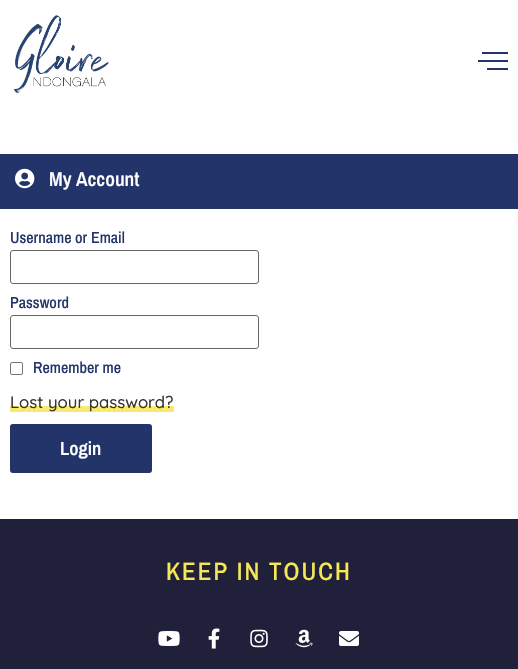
void draw(SkCanvas* canvas) {
	SkPaint paint;
	paint.setAntiAlias(true);
	auto spacedText = [&](const char* s, float x, float y, const SkFont& font, const SkPaint& ink, float letter, float word) {
		std::vector<SkGlyphID> glyphs(font.countText(s, strlen(s), SkTextEncoding::kUTF8));
		std::vector<float> xs(glyphs.size());
		font.textToGlyphs(s, strlen(s), SkTextEncoding::kUTF8, glyphs);
		font.getXPos(glyphs, xs, x);
		float extra = 0;
		for (size_t i = 0; i < glyphs.size(); i++) {
			xs[i] += extra;
			extra += letter + word * (glyphs[i] == font.unicharToGlyph(' '));
		}
		canvas->drawTextBlob(SkTextBlob::MakeFromPosHGlyphs(glyphs, xs, y, font), 0, 0, ink);
	};
	canvas->clear(0xffffffff);
	canvas->drawImageRect(SkImages::DeferredFromEncodedData(SkData::MakeFromFileName("img1.png")), SkRect::MakeXYWH(13, 15, 96, 78), SkSamplingOptions());
	paint.setColor(0xff223469);
	canvas->drawRect(SkRect::MakeXYWH(482, 52, 26, 2), paint);
	canvas->drawRect(SkRect::MakeXYWH(478, 60, 30, 2), paint);
	canvas->drawRect(SkRect::MakeXYWH(487, 68, 21, 2), paint);
	canvas->drawRect(SkRect::MakeXYWH(0, 154, 518, 55), paint);
	canvas->drawImageRect(SkImages::DeferredFromEncodedData(SkData::MakeFromFileName("img2.png")), SkRect::MakeXYWH(15, 168, 20, 21), SkSamplingOptions());
	SkFont f1(fontMgr->matchFamilyStyle("Archivo Narrow", SkFontStyle(600, SkFontStyle::kNormal_Width, SkFontStyle::kUpright_Slant)), 20);
	f1.setSubpixel(true);
	paint.setColor(0xffffffff);
	canvas->drawString("My Account", 49, 186, f1, paint);
	SkFont f2(fontMgr->matchFamilyStyle("Archivo Narrow", SkFontStyle(500, SkFontStyle::kNormal_Width, SkFontStyle::kUpright_Slant)), 16);
	f2.setSubpixel(true);
	paint.setColor(0xff223469);
	canvas->drawString("Username or Email", 10, 243, f2, paint);
	paint.setStroke(true);
	paint.setStrokeWidth(1);
	paint.setColor(0xff666666);
	canvas->drawRoundRect(SkRect::MakeXYWH(10.5, 250.5, 248, 33), 2.5, 2.5, paint);
	paint.setStroke(false);
	paint.setColor(0xff223469);
	canvas->drawString("Password", 10, 308, f2, paint);
	paint.setStroke(true);
	paint.setColor(0xff666666);
	canvas->drawRoundRect(SkRect::MakeXYWH(10.5, 315.5, 248, 33), 2.5, 2.5, paint);
	paint.setColor(0xff767676);
	canvas->drawRoundRect(SkRect::MakeXYWH(10.5, 362.5, 12, 12), 1.5, 1.5, paint);
	paint.setStroke(false);
	paint.setColor(0xff223469);
	canvas->drawString("Remember me", 33, 373, f2, paint);
	paint.setColor(0xfff7ea6e);
	canvas->drawRect(SkRect::MakeXYWH(10, 406, 164, 6), paint);
	SkFont f3(fontMgr->matchFamilyStyle("Quicksand", SkFontStyle(500, SkFontStyle::kNormal_Width, SkFontStyle::kUpright_Slant)), 16.75);
	f3.setSubpixel(true);
	paint.setColor(0xff333333);
	canvas->drawString("Lost your password?", 10, 408, f3, paint);
	paint.setColor(0xff223469);
	canvas->drawRoundRect(SkRect::MakeXYWH(11, 425, 140, 47), 2, 2, paint);
	paint.setStroke(true);
	paint.setStrokeWidth(2);
	canvas->drawRoundRect(SkRect::MakeXYWH(11, 425, 140, 47), 2, 2, paint);
	SkFont f4(fontMgr->matchFamilyStyle("Archivo Narrow", SkFontStyle(600, SkFontStyle::kNormal_Width, SkFontStyle::kUpright_Slant)), 19);
	f4.setSubpixel(true);
	paint.setStroke(false);
	paint.setColor(0xffffffff);
	canvas->drawString("Login", 60, 455, f4, paint);
	paint.setColor(0xff21203a);
	canvas->drawRect(SkRect::MakeXYWH(0, 519, 518, 150), paint);
	SkFont f5(fontMgr->matchFamilyStyle("Archivo Narrow", SkFontStyle(500, SkFontStyle::kNormal_Width, SkFontStyle::kUpright_Slant)), 25);
	f5.setSubpixel(true);
	paint.setColor(0xfff6e755);
	spacedText("KEEP IN TOUCH", 166, 580, f5, paint, 2, 0);
	canvas->drawImageRect(SkImages::DeferredFromEncodedData(SkData::MakeFromFileName("img3.png")), SkRect::MakeXYWH(158, 631, 22, 15), SkSamplingOptions());
	canvas->drawImageRect(SkImages::DeferredFromEncodedData(SkData::MakeFromFileName("img4.png")), SkRect::MakeXYWH(208, 628, 12, 21), SkSamplingOptions());
	canvas->drawImageRect(SkImages::DeferredFromEncodedData(SkData::MakeFromFileName("img5.png")), SkRect::MakeXYWH(250, 629, 18, 19), SkSamplingOptions());
	canvas->drawImageRect(SkImages::DeferredFromEncodedData(SkData::MakeFromFileName("img6.png")), SkRect::MakeXYWH(295, 629, 18, 19), SkSamplingOptions());
	canvas->drawImageRect(SkImages::DeferredFromEncodedData(SkData::MakeFromFileName("img7.png")), SkRect::MakeXYWH(339, 631, 20, 15), SkSamplingOptions());
}
